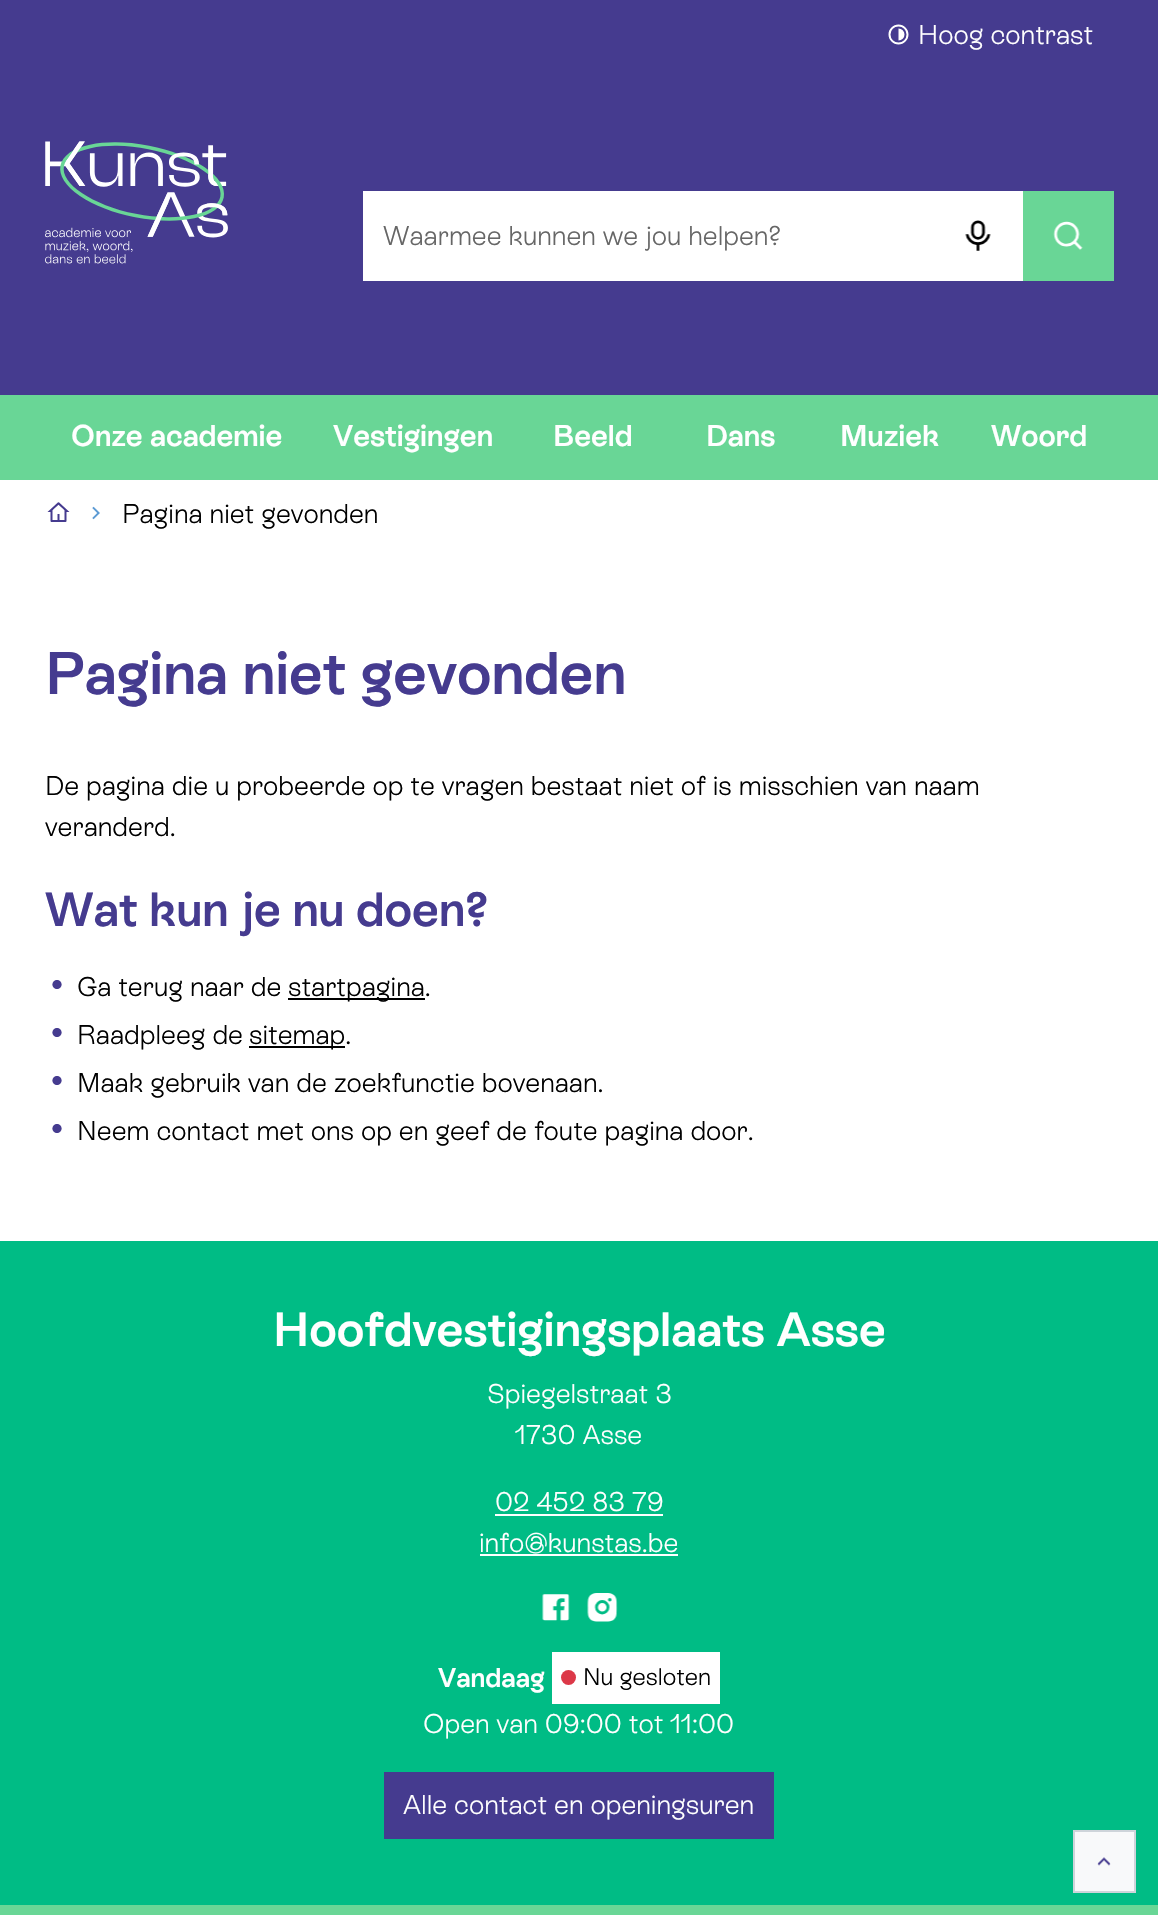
void draw(SkCanvas* canvas) {
	SkPaint paint;
	paint.setAntiAlias(true);
	canvas->clear(0xffffffff);
	paint.setColor(0xff453b8f);
	canvas->drawRect(SkRect::MakeXYWH(0, 0, 1158, 395), paint);
	canvas->drawImageRect(SkImages::DeferredFromEncodedData(SkData::MakeFromFileName("img1.png")), SkRect::MakeXYWH(888, 24, 21, 21), SkSamplingOptions());
	SkFont f1(fontMgr->matchFamilyStyle("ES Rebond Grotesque", SkFontStyle(300, SkFontStyle::kNormal_Width, SkFontStyle::kUpright_Slant)), 27);
	f1.setSubpixel(true);
	paint.setColor(0xffffffff);
	canvas->drawString("Hoog contrast", 918, 44, f1, paint);
	canvas->drawImageRect(SkImages::DeferredFromEncodedData(SkData::MakeFromFileName("img2.png")), SkRect::MakeXYWH(45, 141, 183, 123), SkSamplingOptions());
	canvas->drawRect(SkRect::MakeXYWH(363, 191, 570, 90), paint);
	canvas->drawRect(SkRect::MakeXYWH(933, 191, 90, 90), paint);
	canvas->drawImageRect(SkImages::DeferredFromEncodedData(SkData::MakeFromFileName("img3.png")), SkRect::MakeXYWH(965, 220, 26, 31), SkSamplingOptions());
	paint.setColor(0xff69d696);
	canvas->drawRect(SkRect::MakeXYWH(1023, 191, 91, 90), paint);
	canvas->drawImageRect(SkImages::DeferredFromEncodedData(SkData::MakeFromFileName("img4.png")), SkRect::MakeXYWH(1053, 221, 30, 29), SkSamplingOptions());
	paint.setColor(0xff666666);
	canvas->drawString("Waarmee kunnen we jou helpen?", 383, 245, f1, paint);
	paint.setColor(0xff69d696);
	canvas->drawRect(SkRect::MakeXYWH(0, 395, 1158, 85), paint);
	SkFont f2(fontMgr->matchFamilyStyle("ES Rebond Grotesque", SkFontStyle(600, SkFontStyle::kNormal_Width, SkFontStyle::kUpright_Slant)), 30);
	f2.setSubpixel(true);
	paint.setColor(0xffffffff);
	canvas->drawString("Onze academie", 71, 446, f2, paint);
	canvas->drawString("Vestigingen", 333, 446, f2, paint);
	canvas->drawString("Beeld", 553, 446, f2, paint);
	canvas->drawString("Dans", 706, 446, f2, paint);
	canvas->drawString("Muziek", 840, 446, f2, paint);
	canvas->drawString("Woord", 991, 446, f2, paint);
	canvas->drawImageRect(SkImages::DeferredFromEncodedData(SkData::MakeFromFileName("img5.png")), SkRect::MakeXYWH(47, 502, 23, 20), SkSamplingOptions());
	canvas->drawImageRect(SkImages::DeferredFromEncodedData(SkData::MakeFromFileName("img6.png")), SkRect::MakeXYWH(92, 506, 8, 14), SkSamplingOptions());
	paint.setColor(0xff000000);
	canvas->drawString("Pagina niet gevonden", 122, 523, f1, paint);
	SkFont f3(fontMgr->matchFamilyStyle("ES Rebond Grotesque", SkFontStyle(600, SkFontStyle::kNormal_Width, SkFontStyle::kUpright_Slant)), 60);
	f3.setSubpixel(true);
	paint.setColor(0xff453b8f);
	canvas->drawString("Pagina niet gevonden", 45, 694, f3, paint);
	paint.setColor(0xff000000);
	canvas->drawString("De pagina die u probeerde op te vragen bestaat niet of is misschien van naam", 45, 795, f1, paint);
	canvas->drawString("veranderd.", 45, 836, f1, paint);
	SkFont f4(fontMgr->matchFamilyStyle("ES Rebond Grotesque", SkFontStyle(600, SkFontStyle::kNormal_Width, SkFontStyle::kUpright_Slant)), 48);
	f4.setSubpixel(true);
	paint.setColor(0xff453b8f);
	canvas->drawString("Wat kun je nu doen?", 45, 926, f4, paint);
	canvas->drawImageRect(SkImages::DeferredFromEncodedData(SkData::MakeFromFileName("img7.png")), SkRect::MakeXYWH(52, 980, 10, 9), SkSamplingOptions());
	paint.setColor(0xff000000);
	canvas->drawString("Ga terug naar de", 77, 996, f1, paint);
	canvas->drawRect(SkRect::MakeXYWH(288, 998, 137, 2), paint);
	canvas->drawString("startpagina.", 288, 996, f1, paint);
	canvas->drawImageRect(SkImages::DeferredFromEncodedData(SkData::MakeFromFileName("img7.png")), SkRect::MakeXYWH(52, 1028, 10, 9), SkSamplingOptions());
	canvas->drawString("Raadpleeg de", 77, 1044, f1, paint);
	canvas->drawRect(SkRect::MakeXYWH(249, 1046, 96, 2), paint);
	canvas->drawString("sitemap.", 249, 1044, f1, paint);
	canvas->drawImageRect(SkImages::DeferredFromEncodedData(SkData::MakeFromFileName("img7.png")), SkRect::MakeXYWH(52, 1076, 10, 9), SkSamplingOptions());
	canvas->drawString("Maak gebruik van de zoekfunctie bovenaan.", 77, 1092, f1, paint);
	canvas->drawImageRect(SkImages::DeferredFromEncodedData(SkData::MakeFromFileName("img7.png")), SkRect::MakeXYWH(52, 1124, 10, 9), SkSamplingOptions());
	canvas->drawString("Neem contact met ons op en geef de foute pagina door.", 77, 1140, f1, paint);
	paint.setColor(0xff00bc85);
	canvas->drawRect(SkRect::MakeXYWH(0, 1241, 1158, 664), paint);
	paint.setColor(0xffffffff);
	canvas->drawString("Hoofdvestigingsplaats Asse", 273, 1346, f4, paint);
	canvas->drawString("Spiegelstraat 3", 487, 1403, f1, paint);
	canvas->drawString("1730 Asse", 515, 1444, f1, paint);
	canvas->drawString("02 452 83 79", 495, 1511, f1, paint);
	canvas->drawRect(SkRect::MakeXYWH(495, 1514, 168, 2), paint);
	canvas->drawString("info@kunstas.be", 479, 1552, f1, paint);
	canvas->drawRect(SkRect::MakeXYWH(480, 1554, 198, 2), paint);
	canvas->drawImageRect(SkImages::DeferredFromEncodedData(SkData::MakeFromFileName("img8.png")), SkRect::MakeXYWH(542, 1594, 28, 27), SkSamplingOptions());
	canvas->drawImageRect(SkImages::DeferredFromEncodedData(SkData::MakeFromFileName("img9.png")), SkRect::MakeXYWH(587, 1593, 31, 29), SkSamplingOptions());
	SkFont f5(fontMgr->matchFamilyStyle("ES Rebond Grotesque", SkFontStyle(600, SkFontStyle::kNormal_Width, SkFontStyle::kUpright_Slant)), 27);
	f5.setSubpixel(true);
	canvas->drawString("Vandaag", 438, 1687, f5, paint);
	canvas->drawRect(SkRect::MakeXYWH(552, 1652, 168, 52), paint);
	paint.setColor(0xffdc3848);
	canvas->drawCircle(568.5, 1677.5, 7.5, paint);
	SkFont f6(fontMgr->matchFamilyStyle("ES Rebond Grotesque", SkFontStyle(300, SkFontStyle::kNormal_Width, SkFontStyle::kUpright_Slant)), 24);
	f6.setSubpixel(true);
	paint.setColor(0xff000000);
	canvas->drawString("Nu gesloten", 583, 1685, f6, paint);
	paint.setColor(0xffffffff);
	canvas->drawString("Open van 09:00 tot 11:00", 423, 1733, f1, paint);
	paint.setColor(0xff453b8f);
	canvas->drawRect(SkRect::MakeXYWH(384, 1772, 390, 67), paint);
	paint.setColor(0xffffffff);
	canvas->drawString("Alle contact en openingsuren", 403, 1814, f1, paint);
	paint.setColor(0xff69d696);
	canvas->drawRect(SkRect::MakeXYWH(0, 1905, 1158, 10), paint);
	paint.setColor(0xfff8f9fa);
	canvas->drawRect(SkRect::MakeXYWH(1074, 1831, 61, 61), paint);
	paint.setStroke(true);
	paint.setStrokeWidth(2);
	paint.setColor(0xffced4da);
	canvas->drawRect(SkRect::MakeXYWH(1074, 1831, 61, 61), paint);
	canvas->drawImageRect(SkImages::DeferredFromEncodedData(SkData::MakeFromFileName("img10.png")), SkRect::MakeXYWH(1097, 1857, 14, 9), SkSamplingOptions());
}
